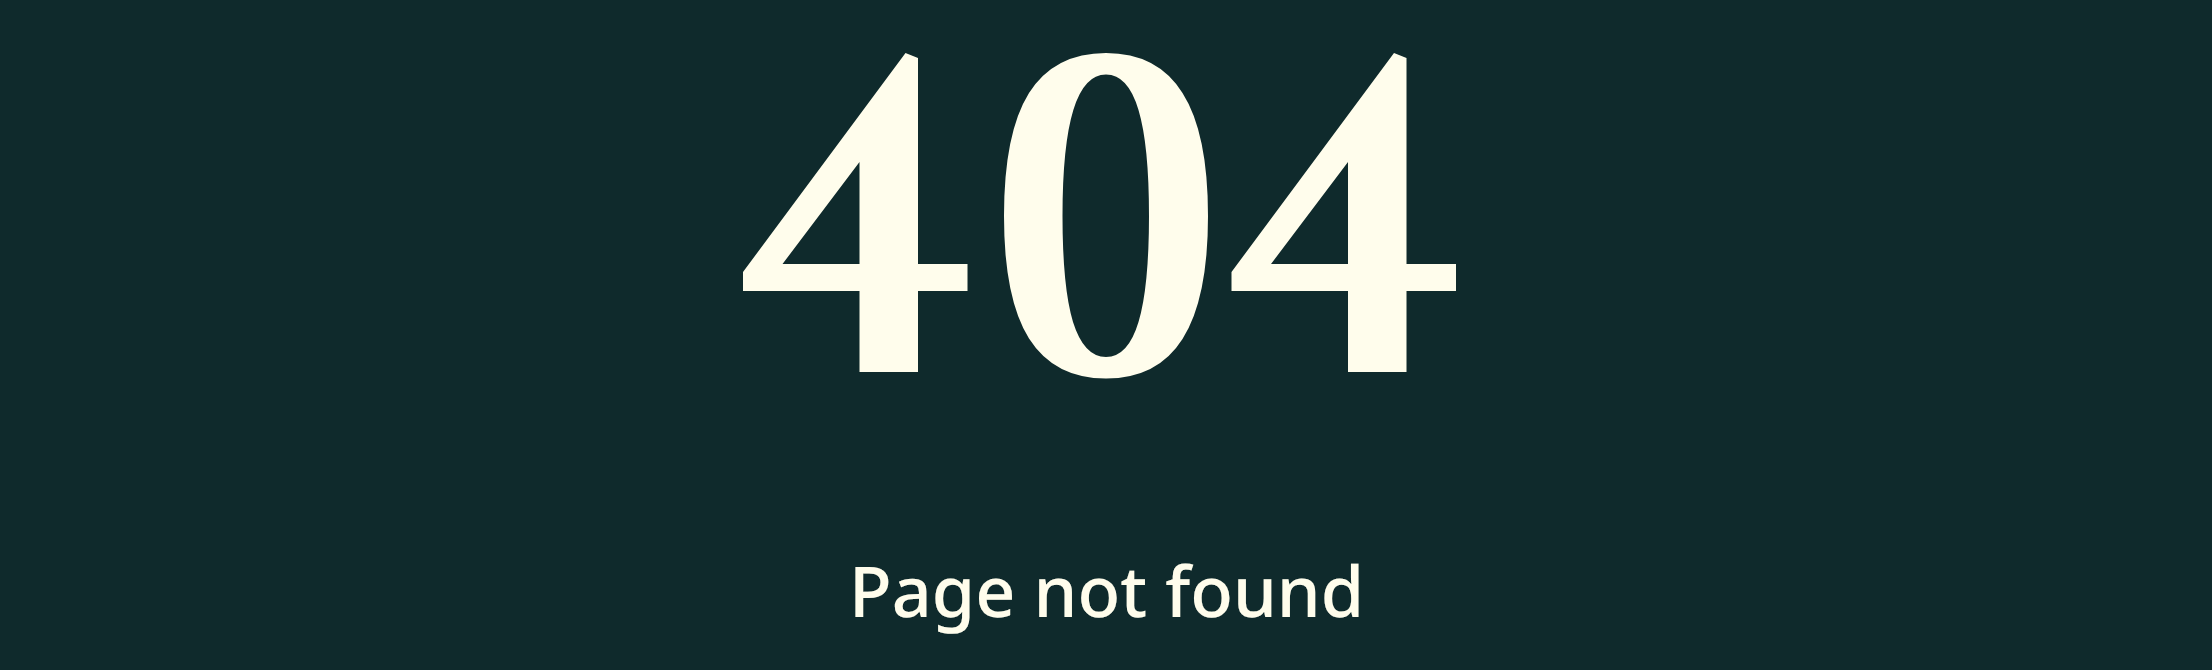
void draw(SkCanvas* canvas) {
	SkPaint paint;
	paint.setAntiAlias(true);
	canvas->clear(0xff0f2a2c);
	SkFont f1(fontMgr->matchFamilyStyle("Gupter", SkFontStyle::Bold()), 500);
	f1.setSubpixel(true);
	paint.setColor(0xfffffdec);
	canvas->drawString("404", 734, 372, f1, paint);
	SkFont f2(fontMgr->matchFamilyStyle("Noto Sans", SkFontStyle(500, SkFontStyle::kNormal_Width, SkFontStyle::kUpright_Slant)), 70);
	f2.setSubpixel(true);
	canvas->drawString("Page not found", 849, 617, f2, paint);
}
